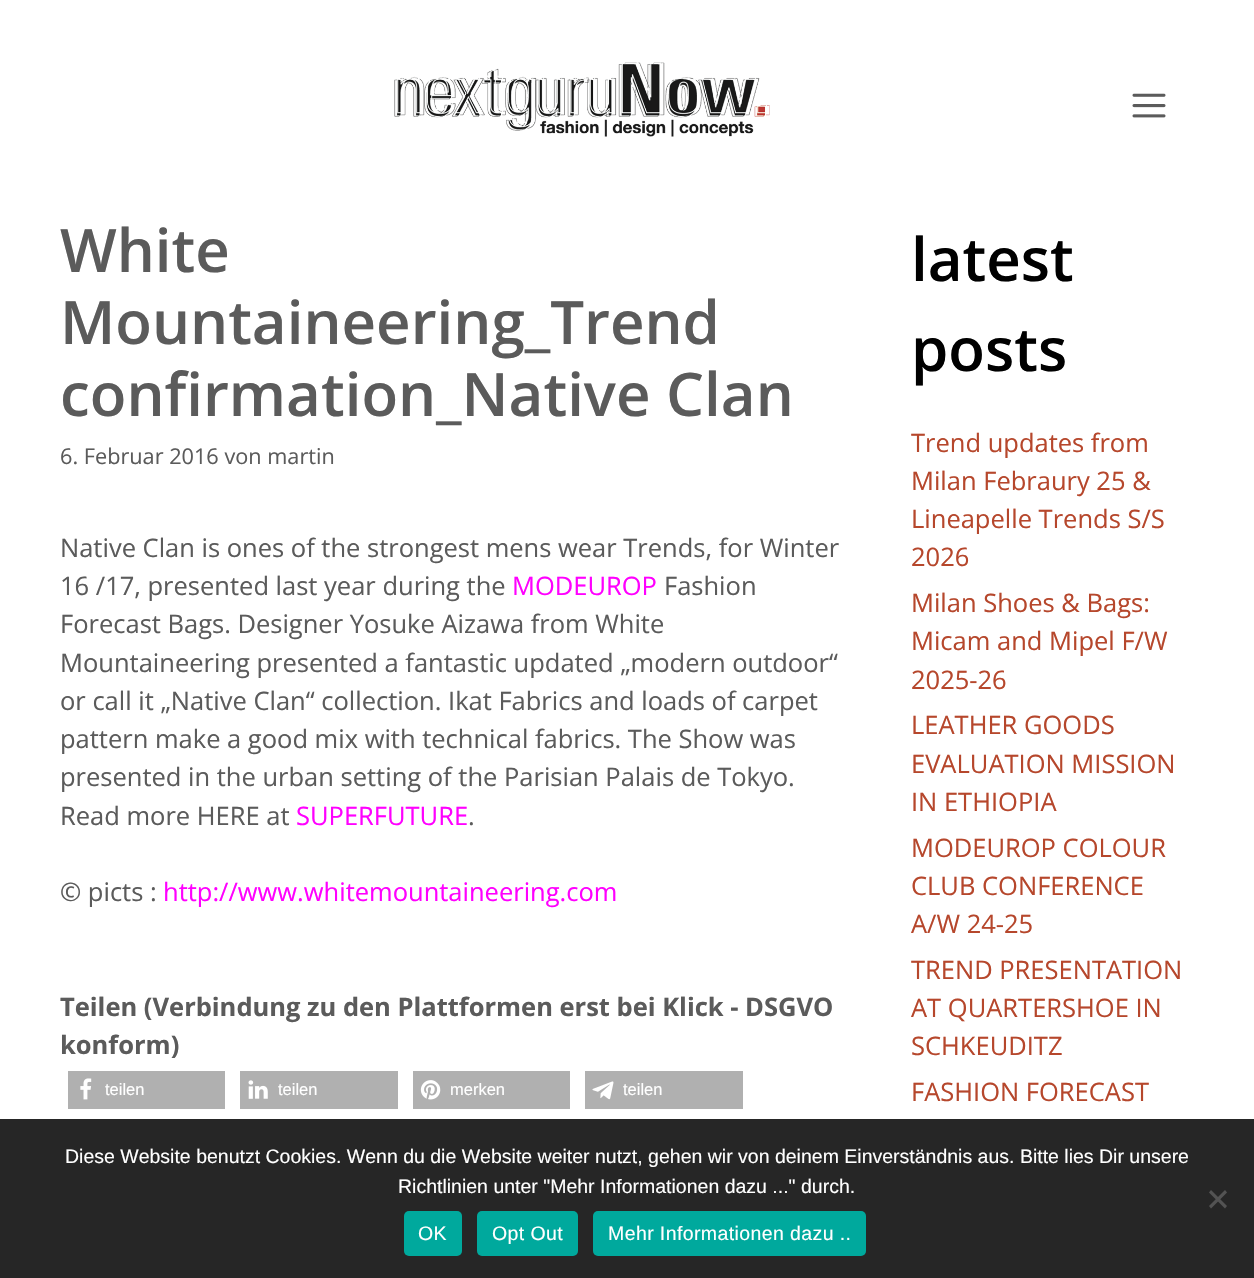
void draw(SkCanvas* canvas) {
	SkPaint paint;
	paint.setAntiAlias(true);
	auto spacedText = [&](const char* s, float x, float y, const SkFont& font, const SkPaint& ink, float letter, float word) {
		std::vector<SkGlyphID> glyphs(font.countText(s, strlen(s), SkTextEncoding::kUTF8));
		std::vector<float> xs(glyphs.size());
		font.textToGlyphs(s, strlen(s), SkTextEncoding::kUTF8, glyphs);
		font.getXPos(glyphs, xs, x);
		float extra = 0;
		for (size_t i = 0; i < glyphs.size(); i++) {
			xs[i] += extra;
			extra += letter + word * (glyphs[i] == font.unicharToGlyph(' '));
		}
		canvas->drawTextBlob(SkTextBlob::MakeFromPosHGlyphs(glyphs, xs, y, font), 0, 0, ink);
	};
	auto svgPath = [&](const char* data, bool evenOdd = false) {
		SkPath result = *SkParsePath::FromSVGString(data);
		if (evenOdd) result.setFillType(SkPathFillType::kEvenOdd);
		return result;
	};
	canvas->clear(0xffffffff);
	canvas->drawImageRect(SkImages::DeferredFromEncodedData(SkData::MakeFromFileName("img1.png")), SkRect::MakeXYWH(394, 62, 376, 75), SkSamplingOptions());
	canvas->drawImageRect(SkImages::DeferredFromEncodedData(SkData::MakeFromFileName("img2.png")), SkRect::MakeXYWH(1132, 93, 34, 25), SkSamplingOptions());
	SkFont f1(fontMgr->matchFamilyStyle("Open Sans", SkFontStyle(600, SkFontStyle::kNormal_Width, SkFontStyle::kUpright_Slant)), 60);
	f1.setSubpixel(true);
	paint.setColor(0xff5b5b5b);
	canvas->drawString("White", 60, 272, f1, paint);
	canvas->drawString("Mountaineering_Trend", 60, 344, f1, paint);
	canvas->drawString("confirmation_Native Clan", 60, 416, f1, paint);
	SkFont f2(fontMgr->matchFamilyStyle("Open Sans", SkFontStyle::Normal()), 21.7);
	f2.setSubpixel(true);
	canvas->drawString("6. Februar 2016 von martin", 60, 464, f2, paint);
	SkFont f3(fontMgr->matchFamilyStyle("Open Sans", SkFontStyle::Normal()), 25.5);
	f3.setSubpixel(true);
	canvas->drawString("Native Clan is ones of the strongest mens wear Trends, for Winter", 60, 557, f3, paint);
	canvas->drawString("16 /17, presented last year during the", 60, 595, f3, paint);
	paint.setColor(0xffff00ff);
	canvas->drawString("MODEUROP", 512, 595, f3, paint);
	paint.setColor(0xff5b5b5b);
	canvas->drawString("Fashion", 664, 595, f3, paint);
	canvas->drawString("Forecast Bags. Designer Yosuke Aizawa from White", 60, 633, f3, paint);
	canvas->drawString("Mountaineering presented a fantastic updated „modern outdoor“", 60, 672, f3, paint);
	canvas->drawString("or call it „Native Clan“ collection. Ikat Fabrics and loads of carpet", 60, 710, f3, paint);
	canvas->drawString("pattern make a good mix with technical fabrics. The Show was", 60, 748, f3, paint);
	canvas->drawString("presented in the urban setting of the Parisian Palais de Tokyo.", 60, 786, f3, paint);
	canvas->drawString("Read more HERE at", 60, 825, f3, paint);
	paint.setColor(0xffff00ff);
	canvas->drawString("SUPERFUTURE", 296, 825, f3, paint);
	paint.setColor(0xff5b5b5b);
	canvas->drawString(".", 468, 825, f3, paint);
	canvas->drawString("© picts :", 60, 901, f3, paint);
	paint.setColor(0xffff00ff);
	canvas->drawString("http://www.whitemountaineering.com", 163, 901, f3, paint);
	SkFont f4(fontMgr->matchFamilyStyle("Open Sans", SkFontStyle::Bold()), 25.5);
	f4.setSubpixel(true);
	paint.setColor(0xff5b5b5b);
	canvas->drawString("Teilen (Verbindung zu den Plattformen erst bei Klick - DSGVO", 60, 1016, f4, paint);
	canvas->drawString("konform)", 60, 1054, f4, paint);
	paint.setColor(0xffb0b0b0);
	canvas->drawRect(SkRect::MakeXYWH(68, 1071, 157, 38), paint);
	canvas->drawImageRect(SkImages::DeferredFromEncodedData(SkData::MakeFromFileName("img3.png")), SkRect::MakeXYWH(80, 1078, 12, 22), SkSamplingOptions());
	SkFont f5(fontMgr->matchFamilyStyle("Liberation Sans", SkFontStyle::Normal()), 16.5);
	f5.setSubpixel(true);
	paint.setColor(0xffffffff);
	canvas->drawString("teilen", 105, 1095, f5, paint);
	paint.setColor(0xffb0b0b0);
	canvas->drawRect(SkRect::MakeXYWH(240, 1071, 158, 38), paint);
	canvas->drawImageRect(SkImages::DeferredFromEncodedData(SkData::MakeFromFileName("img4.png")), SkRect::MakeXYWH(248, 1080, 20, 19), SkSamplingOptions());
	paint.setColor(0xffffffff);
	canvas->drawString("teilen", 278, 1095, f5, paint);
	paint.setColor(0xffb0b0b0);
	canvas->drawRect(SkRect::MakeXYWH(413, 1071, 157, 38), paint);
	canvas->drawImageRect(SkImages::DeferredFromEncodedData(SkData::MakeFromFileName("img5.png")), SkRect::MakeXYWH(420, 1080, 21, 20), SkSamplingOptions());
	paint.setColor(0xffffffff);
	canvas->drawString("merken", 450, 1095, f5, paint);
	paint.setColor(0xffb0b0b0);
	canvas->drawRect(SkRect::MakeXYWH(585, 1071, 158, 38), paint);
	canvas->drawImageRect(SkImages::DeferredFromEncodedData(SkData::MakeFromFileName("img6.png")), SkRect::MakeXYWH(592, 1081, 22, 19), SkSamplingOptions());
	paint.setColor(0xffffffff);
	canvas->drawString("teilen", 623, 1095, f5, paint);
	paint.setColor(0xff000000);
	canvas->drawString("latest", 911, 281, f1, paint);
	canvas->drawString("posts", 911, 371, f1, paint);
	paint.setColor(0xffb6472c);
	canvas->drawString("Trend updates from", 911, 452, f3, paint);
	canvas->drawString("Milan Febraury 25 &", 911, 490, f3, paint);
	canvas->drawString("Lineapelle Trends S/S", 911, 528, f3, paint);
	canvas->drawString("2026", 911, 566, f3, paint);
	canvas->drawString("Milan Shoes & Bags:", 911, 612, f3, paint);
	canvas->drawString("Micam and Mipel F/W", 911, 650, f3, paint);
	canvas->drawString("2025-26", 911, 689, f3, paint);
	canvas->drawString("LEATHER GOODS", 911, 734, f3, paint);
	canvas->drawString("EVALUATION MISSION", 911, 773, f3, paint);
	canvas->drawString("IN ETHIOPIA", 911, 811, f3, paint);
	canvas->drawString("MODEUROP COLOUR", 911, 857, f3, paint);
	canvas->drawString("CLUB CONFERENCE", 911, 895, f3, paint);
	canvas->drawString("A/W 24-25", 911, 933, f3, paint);
	canvas->drawString("TREND PRESENTATION", 911, 979, f3, paint);
	canvas->drawString("AT QUARTERSHOE IN", 911, 1017, f3, paint);
	canvas->drawString("SCHKEUDITZ", 911, 1055, f3, paint);
	canvas->drawString("FASHION FORECAST", 911, 1101, f3, paint);
	paint.setColor(0xff262626);
	canvas->drawRect(SkRect::MakeXYWH(0, 1119, 1254, 159), paint);
	SkFont f6(fontMgr->matchFamilyStyle("Liberation Sans", SkFontStyle::Normal()), 19.5);
	f6.setSubpixel(true);
	paint.setColor(0xffffffff);
	canvas->drawString("Diese Website benutzt Cookies. Wenn du die Website weiter nutzt, gehen wir von deinem Einverständnis aus. Bitte lies Dir unsere", 65, 1163, f6, paint);
	canvas->drawString("Richtlinien unter \"Mehr Informationen dazu ...\" durch.", 398, 1193, f6, paint);
	paint.setColor(0xff535353);
	canvas->drawPath(svgPath("M1225 1190L1227 1192.5L1211 1208.5L1209 1206Z"), paint);
	canvas->drawPath(svgPath("M1209 1192.5L1211 1190L1227 1206L1225 1208.5Z"), paint);
	paint.setColor(0xff00a99d);
	canvas->drawRoundRect(SkRect::MakeXYWH(404, 1211, 58, 45), 5, 5, paint);
	paint.setColor(0xffffffff);
	spacedText("OK", 418, 1240, f6, paint, 0.4, 0);
	paint.setColor(0xff00a99d);
	canvas->drawRoundRect(SkRect::MakeXYWH(477, 1211, 101, 45), 5, 5, paint);
	paint.setColor(0xffffffff);
	spacedText("Opt Out", 492, 1240, f6, paint, 0.4, 0);
	paint.setColor(0xff00a99d);
	canvas->drawRoundRect(SkRect::MakeXYWH(593, 1211, 273, 45), 5, 5, paint);
	paint.setColor(0xffffffff);
	spacedText("Mehr Informationen dazu ..", 608, 1240, f6, paint, 0.4, 0);
}
